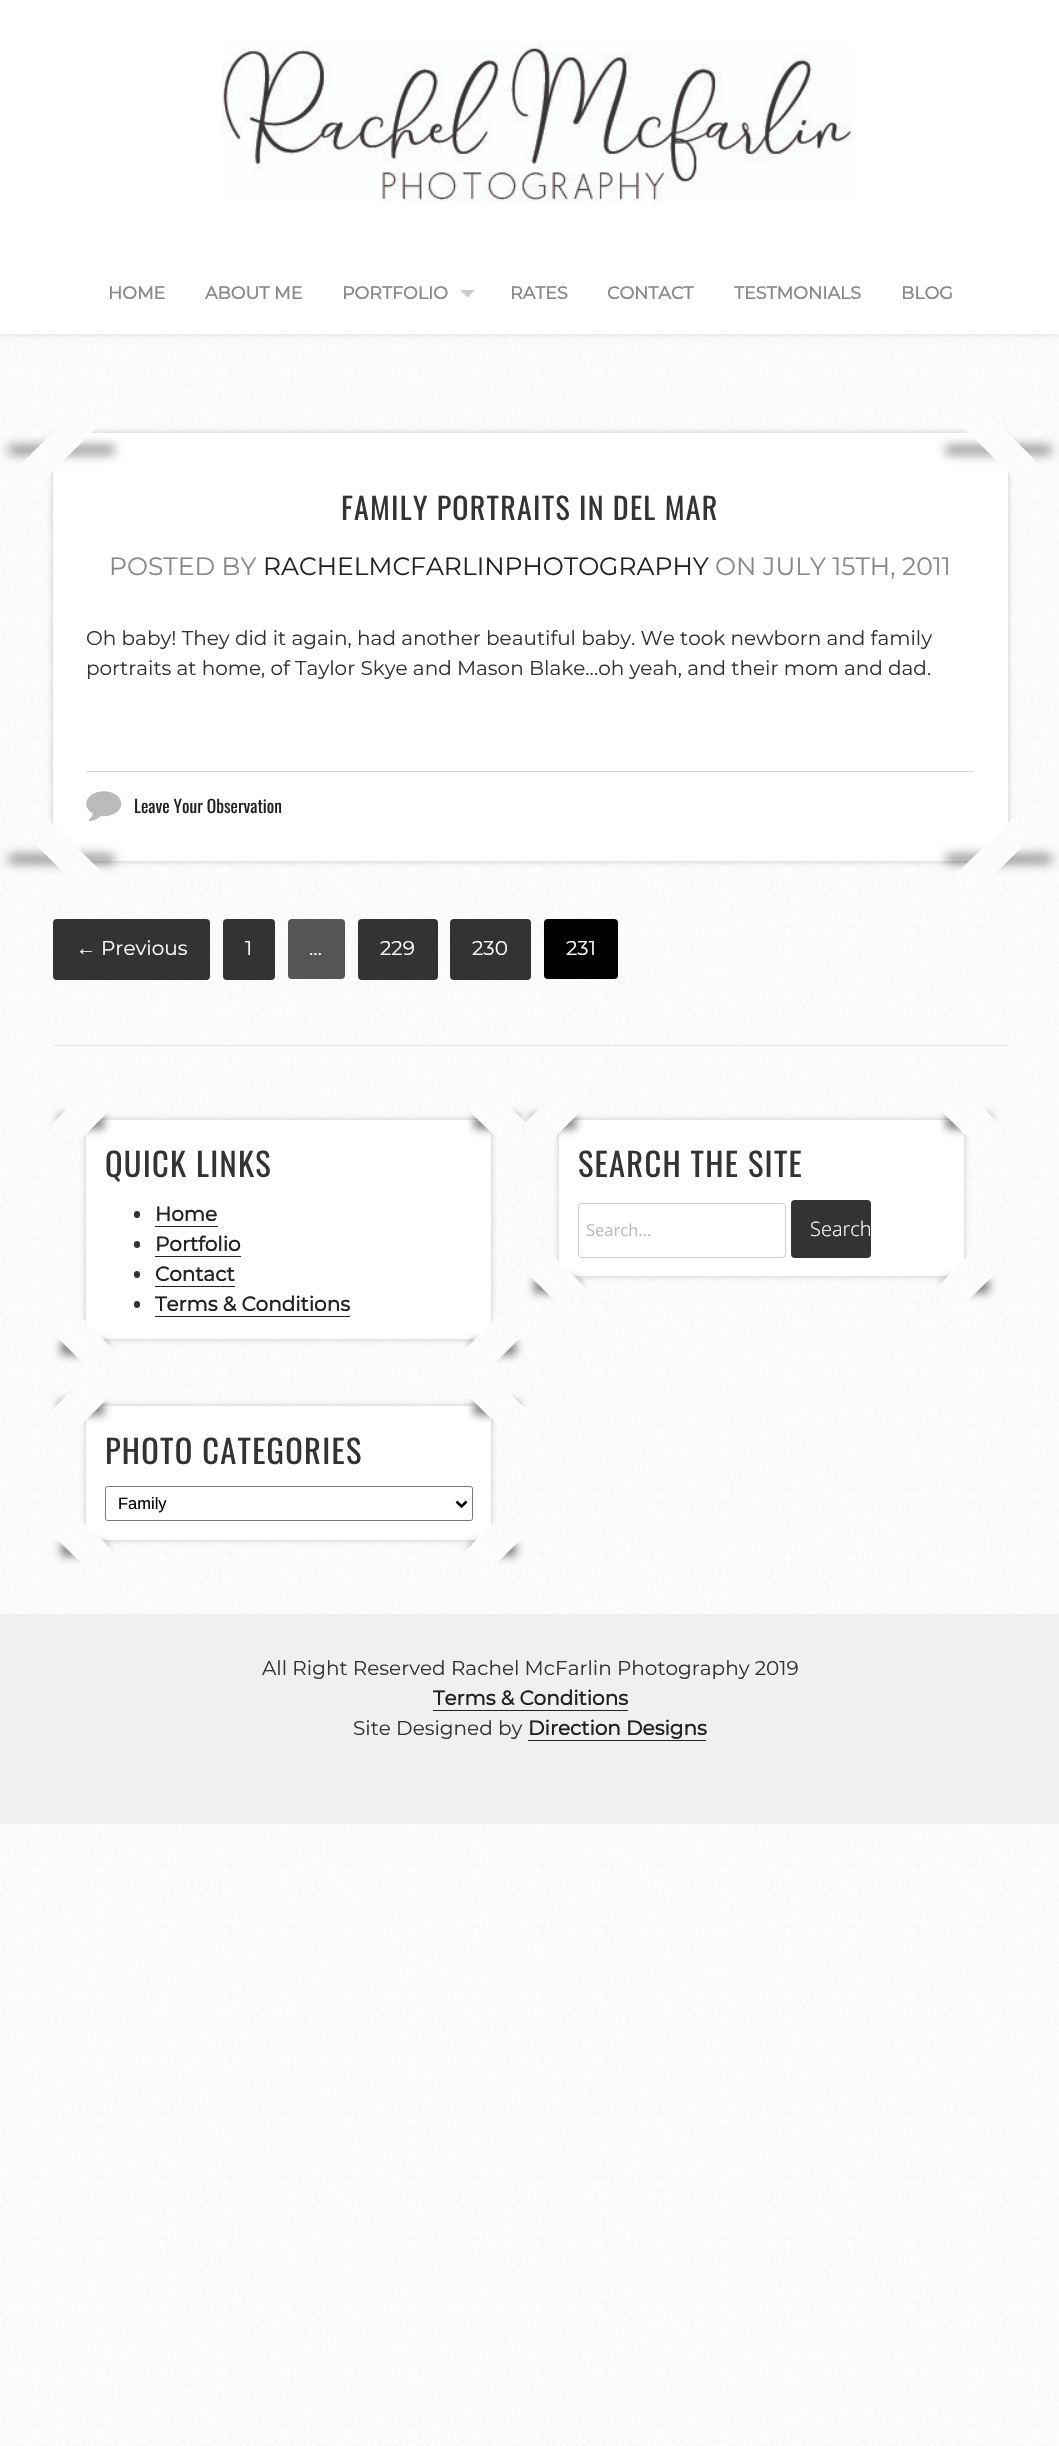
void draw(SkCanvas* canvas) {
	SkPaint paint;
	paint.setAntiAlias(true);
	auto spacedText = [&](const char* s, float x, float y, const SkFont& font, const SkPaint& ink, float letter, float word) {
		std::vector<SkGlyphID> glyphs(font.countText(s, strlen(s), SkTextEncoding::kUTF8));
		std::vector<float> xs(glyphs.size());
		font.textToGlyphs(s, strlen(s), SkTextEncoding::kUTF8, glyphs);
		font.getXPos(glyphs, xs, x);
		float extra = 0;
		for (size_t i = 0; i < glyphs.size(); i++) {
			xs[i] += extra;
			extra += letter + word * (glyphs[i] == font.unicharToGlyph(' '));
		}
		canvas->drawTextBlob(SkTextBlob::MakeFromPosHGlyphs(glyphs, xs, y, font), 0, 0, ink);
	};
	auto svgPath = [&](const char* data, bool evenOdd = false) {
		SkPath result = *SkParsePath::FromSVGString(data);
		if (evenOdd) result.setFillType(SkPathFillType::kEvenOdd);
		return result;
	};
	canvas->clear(0xffffffff);
	canvas->drawImageRect(SkImages::DeferredFromEncodedData(SkData::MakeFromFileName("img1.png")), SkRect::MakeXYWH(0, 334, 1059, 2112), SkSamplingOptions());
	paint.setColor(0x26000000);
	paint.setMaskFilter(SkMaskFilter::MakeBlur(kNormal_SkBlurStyle, 3));
	canvas->drawRect(SkRect::MakeXYWH(0, -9, 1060, 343), paint);
	paint.setMaskFilter(nullptr);
	paint.setColor(0xffffffff);
	canvas->drawRect(SkRect::MakeXYWH(0, 0, 1059, 334), paint);
	canvas->drawImageRect(SkImages::DeferredFromEncodedData(SkData::MakeFromFileName("img2.png")), SkRect::MakeXYWH(222, 42, 631, 161), SkSamplingOptions());
	SkFont f1(fontMgr->matchFamilyStyle("Montserrat", SkFontStyle::Bold()), 17.5);
	f1.setSubpixel(true);
	paint.setColor(0xff888888);
	canvas->drawString("HOME", 108, 299, f1, paint);
	canvas->drawString("ABOUT ME", 205, 299, f1, paint);
	canvas->drawString("PORTFOLIO", 342, 299, f1, paint);
	paint.setColor(0xffcccccc);
	canvas->drawPath(svgPath("M460 290H475L467.5 297.5Z"), paint);
	paint.setColor(0xff888888);
	canvas->drawString("RATES", 510, 299, f1, paint);
	canvas->drawString("CONTACT", 607, 299, f1, paint);
	canvas->drawString("TESTMONIALS", 734, 299, f1, paint);
	canvas->drawString("BLOG", 901, 299, f1, paint);
	paint.setColor(0x33000000);
	paint.setMaskFilter(SkMaskFilter::MakeBlur(kNormal_SkBlurStyle, 3));
	canvas->drawRoundRect(SkRect::MakeXYWH(53, 433, 955, 428), 4, 4, paint);
	paint.setMaskFilter(nullptr);
	paint.setColor(0xffffffff);
	canvas->drawRect(SkRect::MakeXYWH(53, 433, 955, 428), paint);
	paint.setColor(0x80000000);
	paint.setMaskFilter(SkMaskFilter::MakeBlur(kNormal_SkBlurStyle, 5.5));
	canvas->drawRect(SkRect::MakeXYWH(9, 446, 105, 8), paint);
	paint.setMaskFilter(nullptr);
	paint.setColor(0xffffffff);
	canvas->drawPath(svgPath("M8 477L96 389L116 408L27 497Z"), paint);
	canvas->drawImageRect(SkImages::DeferredFromEncodedData(SkData::MakeFromFileName("img3.png")), SkRect::MakeXYWH(8, 389, 105, 107), SkSamplingOptions());
	paint.setColor(0x80000000);
	paint.setMaskFilter(SkMaskFilter::MakeBlur(kNormal_SkBlurStyle, 5.5));
	canvas->drawRect(SkRect::MakeXYWH(946, 446, 105, 8), paint);
	paint.setMaskFilter(nullptr);
	paint.setColor(0xffffffff);
	canvas->drawPath(svgPath("M964 389L1052 477L1033 497L944 408Z"), paint);
	canvas->drawImageRect(SkImages::DeferredFromEncodedData(SkData::MakeFromFileName("img4.png")), SkRect::MakeXYWH(946, 390, 106, 104), SkSamplingOptions());
	SkFont f2(fontMgr->matchFamilyStyle("Oswald", SkFontStyle::Normal()), 30);
	f2.setSubpixel(true);
	paint.setColor(0xff333333);
	spacedText("FAMILY PORTRAITS IN DEL MAR", 341, 520, f2, paint, 1.25, 0);
	SkFont f3(fontMgr->matchFamilyStyle("Montserrat", SkFontStyle(100, SkFontStyle::kNormal_Width, SkFontStyle::kUpright_Slant)), 25);
	f3.setSubpixel(true);
	paint.setColor(0xff888888);
	canvas->drawString("POSTED BY", 109, 575, f3, paint);
	paint.setColor(0xff222222);
	canvas->drawString("RACHELMCFARLINPHOTOGRAPHY", 263, 575, f3, paint);
	paint.setColor(0xff888888);
	canvas->drawString("ON JULY 15TH, 2011", 715, 575, f3, paint);
	SkFont f4(fontMgr->matchFamilyStyle("Montserrat", SkFontStyle(100, SkFontStyle::kNormal_Width, SkFontStyle::kUpright_Slant)), 20);
	f4.setSubpixel(true);
	paint.setColor(0xff333333);
	canvas->drawString("Oh baby! They did it again, had another beautiful baby. We took newborn and family", 86, 645, f4, paint);
	canvas->drawString("portraits at home, of Taylor Skye and Mason Blake…oh yeah, and their mom and dad.", 86, 675, f4, paint);
	paint.setColor(0xffd5d5d5);
	canvas->drawRect(SkRect::MakeXYWH(86, 771, 888, 1), paint);
	canvas->drawImageRect(SkImages::DeferredFromEncodedData(SkData::MakeFromFileName("img5.png")), SkRect::MakeXYWH(86, 791, 36, 31), SkSamplingOptions());
	SkFont f5(fontMgr->matchFamilyStyle("Oswald", SkFontStyle::Normal()), 17.5);
	f5.setSubpixel(true);
	paint.setColor(0xff222222);
	canvas->drawString("Leave Your Observation", 134, 813, f5, paint);
	paint.setColor(0x80000000);
	paint.setMaskFilter(SkMaskFilter::MakeBlur(kNormal_SkBlurStyle, 5.5));
	canvas->drawRect(SkRect::MakeXYWH(9, 855, 105, 8), paint);
	paint.setMaskFilter(nullptr);
	paint.setColor(0xffffffff);
	canvas->drawPath(svgPath("M96 905L8 817L27 798L116 886Z"), paint);
	canvas->drawImageRect(SkImages::DeferredFromEncodedData(SkData::MakeFromFileName("img6.png")), SkRect::MakeXYWH(8, 800, 106, 104), SkSamplingOptions());
	paint.setColor(0x80000000);
	paint.setMaskFilter(SkMaskFilter::MakeBlur(kNormal_SkBlurStyle, 5.5));
	canvas->drawRect(SkRect::MakeXYWH(946, 855, 105, 8), paint);
	paint.setMaskFilter(nullptr);
	paint.setColor(0xffffffff);
	canvas->drawPath(svgPath("M1052 817L964 905L944 886L1033 798Z"), paint);
	canvas->drawImageRect(SkImages::DeferredFromEncodedData(SkData::MakeFromFileName("img7.png")), SkRect::MakeXYWH(947, 799, 105, 106), SkSamplingOptions());
	paint.setColor(0xff333333);
	canvas->drawRoundRect(SkRect::MakeXYWH(53, 919, 157, 61), 4, 4, paint);
	SkFont f6(fontMgr->matchFamilyStyle("Liberation Sans", SkFontStyle::Normal()), 20);
	f6.setSubpixel(true);
	paint.setColor(0xffffffff);
	canvas->drawString("←", 76, 955, f6, paint);
	canvas->drawString("Previous", 101, 955, f4, paint);
	paint.setColor(0xff333333);
	canvas->drawRoundRect(SkRect::MakeXYWH(223, 919, 52, 61), 4, 4, paint);
	paint.setColor(0xffffffff);
	canvas->drawString("1", 245, 955, f4, paint);
	paint.setColor(0xff555555);
	canvas->drawRoundRect(SkRect::MakeXYWH(288, 919, 57, 60), 4, 4, paint);
	paint.setColor(0xffffffff);
	canvas->drawString("…", 309, 955, f4, paint);
	paint.setColor(0xff333333);
	canvas->drawRoundRect(SkRect::MakeXYWH(358, 919, 80, 61), 4, 4, paint);
	paint.setColor(0xffffffff);
	canvas->drawString("229", 380, 955, f4, paint);
	paint.setColor(0xff333333);
	canvas->drawRoundRect(SkRect::MakeXYWH(450, 919, 81, 61), 4, 4, paint);
	paint.setColor(0xffffffff);
	canvas->drawString("230", 472, 955, f4, paint);
	paint.setColor(0xff000000);
	canvas->drawRoundRect(SkRect::MakeXYWH(544, 919, 74, 60), 4, 4, paint);
	paint.setColor(0xffffffff);
	canvas->drawString("231", 566, 955, f4, paint);
	paint.setColor(0xffe6e6e6);
	canvas->drawRect(SkRect::MakeXYWH(53, 1045, 955, 1), paint);
	paint.setColor(0x33000000);
	paint.setMaskFilter(SkMaskFilter::MakeBlur(kNormal_SkBlurStyle, 3));
	canvas->drawRoundRect(SkRect::MakeXYWH(86, 1120, 405, 219), 4, 4, paint);
	paint.setMaskFilter(nullptr);
	paint.setColor(0xffffffff);
	canvas->drawRect(SkRect::MakeXYWH(86, 1120, 405, 219), paint);
	paint.setColor(0x80000000);
	paint.setMaskFilter(SkMaskFilter::MakeBlur(kNormal_SkBlurStyle, 4.5));
	canvas->drawRect(SkRect::MakeXYWH(59, 1115, 45, 14), paint);
	paint.setMaskFilter(nullptr);
	paint.setColor(0xffffffff);
	canvas->drawPath(svgPath("M49 1127L93 1082L115 1105L71 1149Z"), paint);
	canvas->drawImageRect(SkImages::DeferredFromEncodedData(SkData::MakeFromFileName("img8.png")), SkRect::MakeXYWH(49, 1083, 64, 64), SkSamplingOptions());
	paint.setColor(0x80000000);
	paint.setMaskFilter(SkMaskFilter::MakeBlur(kNormal_SkBlurStyle, 4.5));
	canvas->drawRect(SkRect::MakeXYWH(474, 1115, 45, 14), paint);
	paint.setMaskFilter(nullptr);
	paint.setColor(0xffffffff);
	canvas->drawPath(svgPath("M485 1082L530 1127L508 1149L463 1105Z"), paint);
	canvas->drawImageRect(SkImages::DeferredFromEncodedData(SkData::MakeFromFileName("img9.png")), SkRect::MakeXYWH(465, 1083, 60, 65), SkSamplingOptions());
	SkFont f7(fontMgr->matchFamilyStyle("Oswald", SkFontStyle::Normal()), 32.5);
	f7.setSubpixel(true);
	paint.setColor(0xff333333);
	spacedText("QUICK LINKS", 105, 1177, f7, paint, 1.25, 0);
	canvas->drawRoundRect(SkRect::MakeXYWH(134, 1211, 6, 7), 3, 3, paint);
	SkFont f8(fontMgr->matchFamilyStyle("Montserrat", SkFontStyle::Bold()), 20);
	f8.setSubpixel(true);
	paint.setColor(0xff222222);
	canvas->drawString("Home", 155, 1221, f8, paint);
	canvas->drawRect(SkRect::MakeXYWH(155, 1226, 63, 1), paint);
	paint.setColor(0xff333333);
	canvas->drawRoundRect(SkRect::MakeXYWH(134, 1241, 6, 7), 3, 3, paint);
	paint.setColor(0xff222222);
	canvas->drawString("Portfolio", 155, 1251, f8, paint);
	canvas->drawRect(SkRect::MakeXYWH(155, 1256, 86, 1), paint);
	paint.setColor(0xff333333);
	canvas->drawRoundRect(SkRect::MakeXYWH(134, 1271, 6, 7), 3, 3, paint);
	paint.setColor(0xff222222);
	canvas->drawString("Contact", 155, 1281, f8, paint);
	canvas->drawRect(SkRect::MakeXYWH(155, 1286, 80, 1), paint);
	paint.setColor(0xff333333);
	canvas->drawRoundRect(SkRect::MakeXYWH(134, 1301, 6, 7), 3, 3, paint);
	paint.setColor(0xff222222);
	canvas->drawString("Terms & Conditions", 155, 1311, f8, paint);
	canvas->drawRect(SkRect::MakeXYWH(155, 1316, 195, 1), paint);
	paint.setColor(0x80000000);
	paint.setMaskFilter(SkMaskFilter::MakeBlur(kNormal_SkBlurStyle, 4.5));
	canvas->drawRect(SkRect::MakeXYWH(61, 1341, 45, 14), paint);
	paint.setMaskFilter(nullptr);
	paint.setColor(0xffffffff);
	canvas->drawPath(svgPath("M95 1375L51 1331L73 1309L117 1353Z"), paint);
	canvas->drawImageRect(SkImages::DeferredFromEncodedData(SkData::MakeFromFileName("img10.png")), SkRect::MakeXYWH(51, 1310, 64, 63), SkSamplingOptions());
	paint.setColor(0x80000000);
	paint.setMaskFilter(SkMaskFilter::MakeBlur(kNormal_SkBlurStyle, 4.5));
	canvas->drawRect(SkRect::MakeXYWH(471, 1341, 45, 14), paint);
	paint.setMaskFilter(nullptr);
	paint.setColor(0xffffffff);
	canvas->drawPath(svgPath("M527 1331L483 1375L461 1353L505 1309Z"), paint);
	canvas->drawImageRect(SkImages::DeferredFromEncodedData(SkData::MakeFromFileName("img11.png")), SkRect::MakeXYWH(462, 1310, 64, 63), SkSamplingOptions());
	paint.setColor(0x33000000);
	paint.setMaskFilter(SkMaskFilter::MakeBlur(kNormal_SkBlurStyle, 3));
	canvas->drawRoundRect(SkRect::MakeXYWH(559, 1120, 405, 156), 4, 4, paint);
	paint.setMaskFilter(nullptr);
	paint.setColor(0xffffffff);
	canvas->drawRect(SkRect::MakeXYWH(559, 1120, 405, 156), paint);
	paint.setColor(0x80000000);
	paint.setMaskFilter(SkMaskFilter::MakeBlur(kNormal_SkBlurStyle, 4.5));
	canvas->drawRect(SkRect::MakeXYWH(531, 1115, 45, 14), paint);
	paint.setMaskFilter(nullptr);
	paint.setColor(0xffffffff);
	canvas->drawPath(svgPath("M521 1127L565 1082L587 1105L543 1149Z"), paint);
	canvas->drawImageRect(SkImages::DeferredFromEncodedData(SkData::MakeFromFileName("img12.png")), SkRect::MakeXYWH(522, 1083, 64, 64), SkSamplingOptions());
	paint.setColor(0x80000000);
	paint.setMaskFilter(SkMaskFilter::MakeBlur(kNormal_SkBlurStyle, 4.5));
	canvas->drawRect(SkRect::MakeXYWH(946, 1115, 45, 14), paint);
	paint.setMaskFilter(nullptr);
	paint.setColor(0xffffffff);
	canvas->drawPath(svgPath("M958 1082L1002 1127L980 1149L935 1105Z"), paint);
	canvas->drawImageRect(SkImages::DeferredFromEncodedData(SkData::MakeFromFileName("img13.png")), SkRect::MakeXYWH(937, 1084, 64, 64), SkSamplingOptions());
	paint.setColor(0xff333333);
	spacedText("SEARCH THE SITE", 578, 1177, f7, paint, 1.25, 0);
	paint.setStroke(true);
	paint.setStrokeWidth(1);
	paint.setColor(0xffcccccc);
	canvas->drawRoundRect(SkRect::MakeXYWH(578.5, 1203.5, 207, 54), 3.5, 3.5, paint);
	SkFont f9(fontMgr->matchFamilyStyle("Open Sans", SkFontStyle::Normal()), 16.5);
	f9.setSubpixel(true);
	paint.setStroke(false);
	paint.setColor(0xffbbbbbb);
	canvas->drawString("Search...", 586, 1236, f9, paint);
	paint.setColor(0xff333333);
	canvas->drawRoundRect(SkRect::MakeXYWH(791, 1200, 80, 58), 4, 4, paint);
	SkFont f10(fontMgr->matchFamilyStyle("Open Sans", SkFontStyle(300, SkFontStyle::kNormal_Width, SkFontStyle::kUpright_Slant)), 20);
	f10.setSubpixel(true);
	paint.setColor(0xffffffff);
	canvas->drawString("Search", 810, 1236, f10, paint);
	paint.setColor(0x80000000);
	paint.setMaskFilter(SkMaskFilter::MakeBlur(kNormal_SkBlurStyle, 4.5));
	canvas->drawRect(SkRect::MakeXYWH(534, 1279, 45, 14), paint);
	paint.setMaskFilter(nullptr);
	paint.setColor(0xffffffff);
	canvas->drawPath(svgPath("M567 1313L523 1269L545 1247L589 1291Z"), paint);
	canvas->drawImageRect(SkImages::DeferredFromEncodedData(SkData::MakeFromFileName("img14.png")), SkRect::MakeXYWH(524, 1247, 64, 64), SkSamplingOptions());
	paint.setColor(0x80000000);
	paint.setMaskFilter(SkMaskFilter::MakeBlur(kNormal_SkBlurStyle, 4.5));
	canvas->drawRect(SkRect::MakeXYWH(944, 1279, 45, 14), paint);
	paint.setMaskFilter(nullptr);
	paint.setColor(0xffffffff);
	canvas->drawPath(svgPath("M1000 1269L955 1313L933 1291L977 1247Z"), paint);
	canvas->drawImageRect(SkImages::DeferredFromEncodedData(SkData::MakeFromFileName("img15.png")), SkRect::MakeXYWH(934, 1248, 64, 64), SkSamplingOptions());
	paint.setColor(0x33000000);
	paint.setMaskFilter(SkMaskFilter::MakeBlur(kNormal_SkBlurStyle, 3));
	canvas->drawRoundRect(SkRect::MakeXYWH(86, 1406, 405, 134), 4, 4, paint);
	paint.setMaskFilter(nullptr);
	paint.setColor(0xffffffff);
	canvas->drawRect(SkRect::MakeXYWH(86, 1406, 405, 134), paint);
	paint.setColor(0x80000000);
	paint.setMaskFilter(SkMaskFilter::MakeBlur(kNormal_SkBlurStyle, 4.5));
	canvas->drawRect(SkRect::MakeXYWH(59, 1401, 45, 14), paint);
	paint.setMaskFilter(nullptr);
	paint.setColor(0xffffffff);
	canvas->drawPath(svgPath("M49 1413L93 1369L115 1391L71 1435Z"), paint);
	canvas->drawImageRect(SkImages::DeferredFromEncodedData(SkData::MakeFromFileName("img16.png")), SkRect::MakeXYWH(49, 1369, 65, 64), SkSamplingOptions());
	paint.setColor(0x80000000);
	paint.setMaskFilter(SkMaskFilter::MakeBlur(kNormal_SkBlurStyle, 4.5));
	canvas->drawRect(SkRect::MakeXYWH(474, 1401, 45, 14), paint);
	paint.setMaskFilter(nullptr);
	paint.setColor(0xffffffff);
	canvas->drawPath(svgPath("M485 1369L530 1413L508 1435L463 1391Z"), paint);
	canvas->drawImageRect(SkImages::DeferredFromEncodedData(SkData::MakeFromFileName("img17.png")), SkRect::MakeXYWH(464, 1370, 65, 64), SkSamplingOptions());
	paint.setColor(0xff333333);
	spacedText("PHOTO CATEGORIES", 105, 1464, f7, paint, 1.25, 0);
	paint.setStroke(true);
	paint.setColor(0xff767676);
	canvas->drawRoundRect(SkRect::MakeXYWH(105.5, 1486.5, 367, 34), 2, 2, paint);
	paint.setStrokeWidth(2.5);
	paint.setColor(0xff000000);
	canvas->drawPath(svgPath("M456.5 1501.5L461.5 1506.5L466.5 1501.5"), paint);
	SkFont f11(fontMgr->matchFamilyStyle("Liberation Sans", SkFontStyle::Normal()), 16.5);
	f11.setSubpixel(true);
	paint.setStroke(false);
	canvas->drawString("Family", 118, 1509, f11, paint);
	paint.setColor(0x80000000);
	paint.setMaskFilter(SkMaskFilter::MakeBlur(kNormal_SkBlurStyle, 4.5));
	canvas->drawRect(SkRect::MakeXYWH(61, 1543, 45, 13), paint);
	paint.setMaskFilter(nullptr);
	paint.setColor(0xffffffff);
	canvas->drawPath(svgPath("M95 1577L51 1533L73 1511L117 1555Z"), paint);
	canvas->drawImageRect(SkImages::DeferredFromEncodedData(SkData::MakeFromFileName("img18.png")), SkRect::MakeXYWH(51, 1511, 64, 64), SkSamplingOptions());
	paint.setColor(0x80000000);
	paint.setMaskFilter(SkMaskFilter::MakeBlur(kNormal_SkBlurStyle, 4.5));
	canvas->drawRect(SkRect::MakeXYWH(471, 1543, 45, 13), paint);
	paint.setMaskFilter(nullptr);
	paint.setColor(0xffffffff);
	canvas->drawPath(svgPath("M527 1533L483 1577L461 1555L505 1511Z"), paint);
	canvas->drawImageRect(SkImages::DeferredFromEncodedData(SkData::MakeFromFileName("img19.png")), SkRect::MakeXYWH(462, 1512, 64, 64), SkSamplingOptions());
	paint.setColor(0xfff0f0f0);
	canvas->drawRect(SkRect::MakeXYWH(0, 1614, 1059, 210), paint);
	paint.setColor(0xff333333);
	canvas->drawString("All Right Reserved Rachel McFarlin Photography 2019", 262, 1675, f4, paint);
	paint.setColor(0xff222222);
	canvas->drawString("Terms & Conditions", 433, 1705, f8, paint);
	canvas->drawRect(SkRect::MakeXYWH(433, 1710, 195, 1), paint);
	paint.setColor(0xff333333);
	canvas->drawString("Site Designed by", 353, 1735, f4, paint);
	paint.setColor(0xff222222);
	canvas->drawString("Direction Designs", 528, 1735, f8, paint);
	canvas->drawRect(SkRect::MakeXYWH(528, 1740, 178, 1), paint);
}
